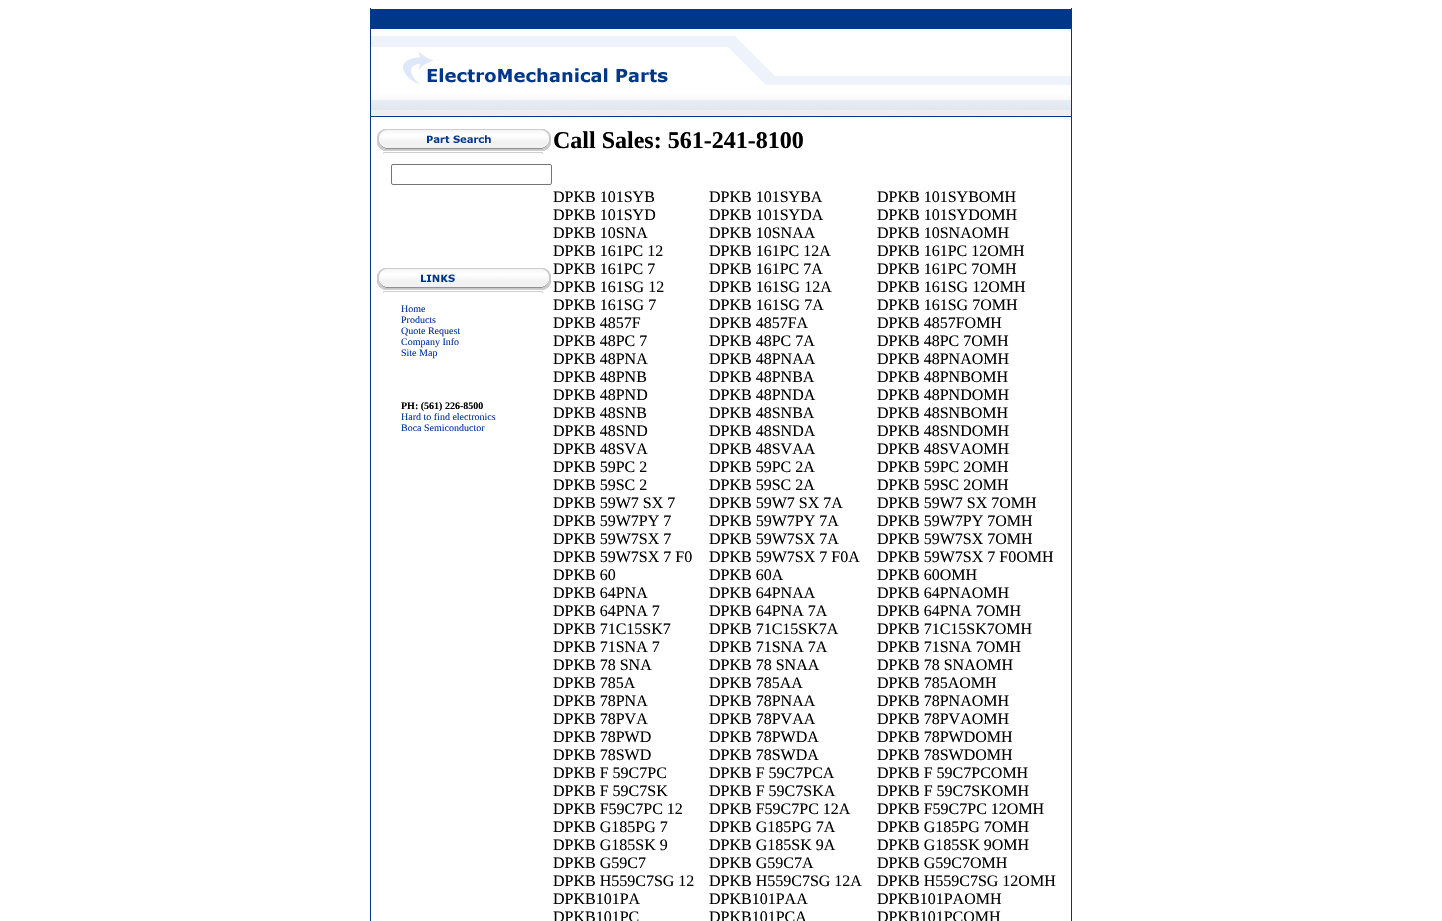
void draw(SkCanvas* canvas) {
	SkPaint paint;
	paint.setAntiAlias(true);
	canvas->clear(0xffffffff);
	paint.setColor(0xff003789);
	canvas->drawRect(SkRect::MakeXYWH(1071, 8, 1, 913), paint);
	canvas->drawRect(SkRect::MakeXYWH(370, 8, 1, 913), paint);
	canvas->drawImageRect(SkImages::DeferredFromEncodedData(SkData::MakeFromFileName("img1.png")), SkRect::MakeXYWH(371, 9, 700, 108), SkSamplingOptions());
	canvas->drawImageRect(SkImages::DeferredFromEncodedData(SkData::MakeFromFileName("img2.png")), SkRect::MakeXYWH(377, 129, 174, 25), SkSamplingOptions());
	paint.setStroke(true);
	paint.setStrokeWidth(1);
	paint.setColor(0xff767676);
	canvas->drawRoundRect(SkRect::MakeXYWH(391.5, 164.5, 160, 20), 1.5, 1.5, paint);
	canvas->drawImageRect(SkImages::DeferredFromEncodedData(SkData::MakeFromFileName("img3.png")), SkRect::MakeXYWH(377, 268, 174, 25), SkSamplingOptions());
	SkFont f1(fontMgr->matchFamilyStyle("Liberation Serif", SkFontStyle::Normal()), 10);
	f1.setSubpixel(true);
	paint.setStroke(false);
	paint.setColor(0xff003399);
	canvas->drawString("Home", 401, 312, f1, paint);
	canvas->drawString("Products", 401, 323, f1, paint);
	canvas->drawString("Quote Request", 401, 334, f1, paint);
	canvas->drawString("Company Info", 401, 345, f1, paint);
	canvas->drawString("Site Map", 401, 356, f1, paint);
	SkFont f2(fontMgr->matchFamilyStyle("Liberation Serif", SkFontStyle::Bold()), 10);
	f2.setSubpixel(true);
	paint.setColor(0xff000000);
	canvas->drawString("PH: (561) 226-8500", 401, 409, f2, paint);
	paint.setColor(0xff003399);
	canvas->drawString("Hard to find electronics", 401, 420, f1, paint);
	canvas->drawString("Boca Semiconductor", 401, 431, f1, paint);
	SkFont f3(fontMgr->matchFamilyStyle("Liberation Serif", SkFontStyle::Bold()), 24);
	f3.setSubpixel(true);
	paint.setColor(0xff000000);
	canvas->drawString("Call Sales: 561-241-8100", 553, 148, f3, paint);
	SkFont f4(fontMgr->matchFamilyStyle("Liberation Serif", SkFontStyle::Normal()), 16);
	f4.setSubpixel(true);
	canvas->drawString("DPKB 101SYB", 553, 202, f4, paint);
	canvas->drawString("DPKB 101SYBA", 709, 202, f4, paint);
	canvas->drawString("DPKB 101SYBOMH", 877, 202, f4, paint);
	canvas->drawString("DPKB 101SYD", 553, 220, f4, paint);
	canvas->drawString("DPKB 101SYDA", 709, 220, f4, paint);
	canvas->drawString("DPKB 101SYDOMH", 877, 220, f4, paint);
	canvas->drawString("DPKB 10SNA", 553, 238, f4, paint);
	canvas->drawString("DPKB 10SNAA", 709, 238, f4, paint);
	canvas->drawString("DPKB 10SNAOMH", 877, 238, f4, paint);
	canvas->drawString("DPKB 161PC 12", 553, 256, f4, paint);
	canvas->drawString("DPKB 161PC 12A", 709, 256, f4, paint);
	canvas->drawString("DPKB 161PC 12OMH", 877, 256, f4, paint);
	canvas->drawString("DPKB 161PC 7", 553, 274, f4, paint);
	canvas->drawString("DPKB 161PC 7A", 709, 274, f4, paint);
	canvas->drawString("DPKB 161PC 7OMH", 877, 274, f4, paint);
	canvas->drawString("DPKB 161SG 12", 553, 292, f4, paint);
	canvas->drawString("DPKB 161SG 12A", 709, 292, f4, paint);
	canvas->drawString("DPKB 161SG 12OMH", 877, 292, f4, paint);
	canvas->drawString("DPKB 161SG 7", 553, 310, f4, paint);
	canvas->drawString("DPKB 161SG 7A", 709, 310, f4, paint);
	canvas->drawString("DPKB 161SG 7OMH", 877, 310, f4, paint);
	canvas->drawString("DPKB 4857F", 553, 328, f4, paint);
	canvas->drawString("DPKB 4857FA", 709, 328, f4, paint);
	canvas->drawString("DPKB 4857FOMH", 877, 328, f4, paint);
	canvas->drawString("DPKB 48PC 7", 553, 346, f4, paint);
	canvas->drawString("DPKB 48PC 7A", 709, 346, f4, paint);
	canvas->drawString("DPKB 48PC 7OMH", 877, 346, f4, paint);
	canvas->drawString("DPKB 48PNA", 553, 364, f4, paint);
	canvas->drawString("DPKB 48PNAA", 709, 364, f4, paint);
	canvas->drawString("DPKB 48PNAOMH", 877, 364, f4, paint);
	canvas->drawString("DPKB 48PNB", 553, 382, f4, paint);
	canvas->drawString("DPKB 48PNBA", 709, 382, f4, paint);
	canvas->drawString("DPKB 48PNBOMH", 877, 382, f4, paint);
	canvas->drawString("DPKB 48PND", 553, 400, f4, paint);
	canvas->drawString("DPKB 48PNDA", 709, 400, f4, paint);
	canvas->drawString("DPKB 48PNDOMH", 877, 400, f4, paint);
	canvas->drawString("DPKB 48SNB", 553, 418, f4, paint);
	canvas->drawString("DPKB 48SNBA", 709, 418, f4, paint);
	canvas->drawString("DPKB 48SNBOMH", 877, 418, f4, paint);
	canvas->drawString("DPKB 48SND", 553, 436, f4, paint);
	canvas->drawString("DPKB 48SNDA", 709, 436, f4, paint);
	canvas->drawString("DPKB 48SNDOMH", 877, 436, f4, paint);
	canvas->drawString("DPKB 48SVA", 553, 454, f4, paint);
	canvas->drawString("DPKB 48SVAA", 709, 454, f4, paint);
	canvas->drawString("DPKB 48SVAOMH", 877, 454, f4, paint);
	canvas->drawString("DPKB 59PC 2", 553, 472, f4, paint);
	canvas->drawString("DPKB 59PC 2A", 709, 472, f4, paint);
	canvas->drawString("DPKB 59PC 2OMH", 877, 472, f4, paint);
	canvas->drawString("DPKB 59SC 2", 553, 490, f4, paint);
	canvas->drawString("DPKB 59SC 2A", 709, 490, f4, paint);
	canvas->drawString("DPKB 59SC 2OMH", 877, 490, f4, paint);
	canvas->drawString("DPKB 59W7 SX 7", 553, 508, f4, paint);
	canvas->drawString("DPKB 59W7 SX 7A", 709, 508, f4, paint);
	canvas->drawString("DPKB 59W7 SX 7OMH", 877, 508, f4, paint);
	canvas->drawString("DPKB 59W7PY 7", 553, 526, f4, paint);
	canvas->drawString("DPKB 59W7PY 7A", 709, 526, f4, paint);
	canvas->drawString("DPKB 59W7PY 7OMH", 877, 526, f4, paint);
	canvas->drawString("DPKB 59W7SX 7", 553, 544, f4, paint);
	canvas->drawString("DPKB 59W7SX 7A", 709, 544, f4, paint);
	canvas->drawString("DPKB 59W7SX 7OMH", 877, 544, f4, paint);
	canvas->drawString("DPKB 59W7SX 7 F0", 553, 562, f4, paint);
	canvas->drawString("DPKB 59W7SX 7 F0A", 709, 562, f4, paint);
	canvas->drawString("DPKB 59W7SX 7 F0OMH", 877, 562, f4, paint);
	canvas->drawString("DPKB 60", 553, 580, f4, paint);
	canvas->drawString("DPKB 60A", 709, 580, f4, paint);
	canvas->drawString("DPKB 60OMH", 877, 580, f4, paint);
	canvas->drawString("DPKB 64PNA", 553, 598, f4, paint);
	canvas->drawString("DPKB 64PNAA", 709, 598, f4, paint);
	canvas->drawString("DPKB 64PNAOMH", 877, 598, f4, paint);
	canvas->drawString("DPKB 64PNA 7", 553, 616, f4, paint);
	canvas->drawString("DPKB 64PNA 7A", 709, 616, f4, paint);
	canvas->drawString("DPKB 64PNA 7OMH", 877, 616, f4, paint);
	canvas->drawString("DPKB 71C15SK7", 553, 634, f4, paint);
	canvas->drawString("DPKB 71C15SK7A", 709, 634, f4, paint);
	canvas->drawString("DPKB 71C15SK7OMH", 877, 634, f4, paint);
	canvas->drawString("DPKB 71SNA 7", 553, 652, f4, paint);
	canvas->drawString("DPKB 71SNA 7A", 709, 652, f4, paint);
	canvas->drawString("DPKB 71SNA 7OMH", 877, 652, f4, paint);
	canvas->drawString("DPKB 78 SNA", 553, 670, f4, paint);
	canvas->drawString("DPKB 78 SNAA", 709, 670, f4, paint);
	canvas->drawString("DPKB 78 SNAOMH", 877, 670, f4, paint);
	canvas->drawString("DPKB 785A", 553, 688, f4, paint);
	canvas->drawString("DPKB 785AA", 709, 688, f4, paint);
	canvas->drawString("DPKB 785AOMH", 877, 688, f4, paint);
	canvas->drawString("DPKB 78PNA", 553, 706, f4, paint);
	canvas->drawString("DPKB 78PNAA", 709, 706, f4, paint);
	canvas->drawString("DPKB 78PNAOMH", 877, 706, f4, paint);
	canvas->drawString("DPKB 78PVA", 553, 724, f4, paint);
	canvas->drawString("DPKB 78PVAA", 709, 724, f4, paint);
	canvas->drawString("DPKB 78PVAOMH", 877, 724, f4, paint);
	canvas->drawString("DPKB 78PWD", 553, 742, f4, paint);
	canvas->drawString("DPKB 78PWDA", 709, 742, f4, paint);
	canvas->drawString("DPKB 78PWDOMH", 877, 742, f4, paint);
	canvas->drawString("DPKB 78SWD", 553, 760, f4, paint);
	canvas->drawString("DPKB 78SWDA", 709, 760, f4, paint);
	canvas->drawString("DPKB 78SWDOMH", 877, 760, f4, paint);
	canvas->drawString("DPKB F 59C7PC", 553, 778, f4, paint);
	canvas->drawString("DPKB F 59C7PCA", 709, 778, f4, paint);
	canvas->drawString("DPKB F 59C7PCOMH", 877, 778, f4, paint);
	canvas->drawString("DPKB F 59C7SK", 553, 796, f4, paint);
	canvas->drawString("DPKB F 59C7SKA", 709, 796, f4, paint);
	canvas->drawString("DPKB F 59C7SKOMH", 877, 796, f4, paint);
	canvas->drawString("DPKB F59C7PC 12", 553, 814, f4, paint);
	canvas->drawString("DPKB F59C7PC 12A", 709, 814, f4, paint);
	canvas->drawString("DPKB F59C7PC 12OMH", 877, 814, f4, paint);
	canvas->drawString("DPKB G185PG 7", 553, 832, f4, paint);
	canvas->drawString("DPKB G185PG 7A", 709, 832, f4, paint);
	canvas->drawString("DPKB G185PG 7OMH", 877, 832, f4, paint);
	canvas->drawString("DPKB G185SK 9", 553, 850, f4, paint);
	canvas->drawString("DPKB G185SK 9A", 709, 850, f4, paint);
	canvas->drawString("DPKB G185SK 9OMH", 877, 850, f4, paint);
	canvas->drawString("DPKB G59C7", 553, 868, f4, paint);
	canvas->drawString("DPKB G59C7A", 709, 868, f4, paint);
	canvas->drawString("DPKB G59C7OMH", 877, 868, f4, paint);
	canvas->drawString("DPKB H559C7SG 12", 553, 886, f4, paint);
	canvas->drawString("DPKB H559C7SG 12A", 709, 886, f4, paint);
	canvas->drawString("DPKB H559C7SG 12OMH", 877, 886, f4, paint);
	canvas->drawString("DPKB101PA", 553, 904, f4, paint);
	canvas->drawString("DPKB101PAA", 709, 904, f4, paint);
	canvas->drawString("DPKB101PAOMH", 877, 904, f4, paint);
	canvas->drawString("DPKB101PC", 553, 922, f4, paint);
	canvas->drawString("DPKB101PCA", 709, 922, f4, paint);
	canvas->drawString("DPKB101PCOMH", 877, 922, f4, paint);
}
